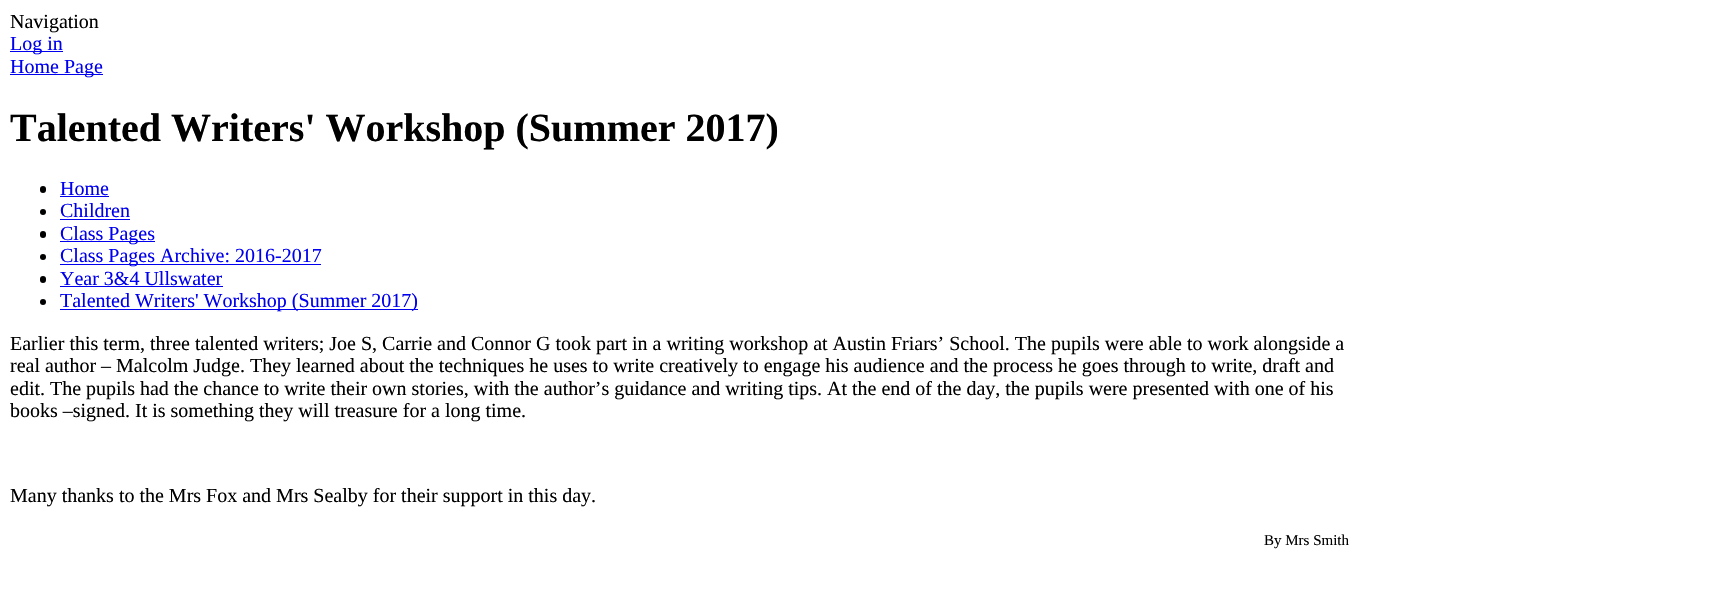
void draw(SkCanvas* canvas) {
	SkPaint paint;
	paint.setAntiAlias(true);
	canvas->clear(0xffffffff);
	SkFont f1(fontMgr->matchFamilyStyle("Liberation Serif", SkFontStyle::Normal()), 20);
	f1.setSubpixel(true);
	paint.setColor(0xff000000);
	canvas->drawString("Navigation", 10, 28, f1, paint);
	paint.setColor(0xff0000ee);
	canvas->drawRect(SkRect::MakeXYWH(10, 51, 53, 1), paint);
	canvas->drawString("Log in", 10, 50, f1, paint);
	canvas->drawRect(SkRect::MakeXYWH(10, 74, 93, 1), paint);
	canvas->drawString("Home Page", 10, 73, f1, paint);
	SkFont f2(fontMgr->matchFamilyStyle("Liberation Serif", SkFontStyle::Bold()), 40);
	f2.setSubpixel(true);
	paint.setColor(0xff000000);
	canvas->drawString("Talented Writers' Workshop (Summer 2017)", 10, 141, f2, paint);
	canvas->drawRoundRect(SkRect::MakeXYWH(40, 186, 6, 7), 3, 3, paint);
	paint.setColor(0xff0000ee);
	canvas->drawString("Home", 60, 195, f1, paint);
	canvas->drawRect(SkRect::MakeXYWH(60, 196, 49, 1), paint);
	paint.setColor(0xff000000);
	canvas->drawCircle(43, 212, 3, paint);
	paint.setColor(0xff0000ee);
	canvas->drawString("Children", 60, 217, f1, paint);
	canvas->drawRect(SkRect::MakeXYWH(60, 219, 70, 1), paint);
	paint.setColor(0xff000000);
	canvas->drawRoundRect(SkRect::MakeXYWH(40, 231, 6, 7), 3, 3, paint);
	paint.setColor(0xff0000ee);
	canvas->drawRect(SkRect::MakeXYWH(60, 241, 95, 1), paint);
	canvas->drawString("Class Pages", 60, 240, f1, paint);
	paint.setColor(0xff000000);
	canvas->drawCircle(43, 257, 3, paint);
	paint.setColor(0xff0000ee);
	canvas->drawRect(SkRect::MakeXYWH(60, 264, 261, 1), paint);
	canvas->drawString("Class Pages Archive: 2016-2017", 60, 262, f1, paint);
	paint.setColor(0xff000000);
	canvas->drawRoundRect(SkRect::MakeXYWH(40, 276, 6, 7), 3, 3, paint);
	paint.setColor(0xff0000ee);
	canvas->drawString("Year 3&4 Ullswater", 60, 285, f1, paint);
	canvas->drawRect(SkRect::MakeXYWH(60, 286, 163, 1), paint);
	paint.setColor(0xff000000);
	canvas->drawCircle(43, 302, 3, paint);
	paint.setColor(0xff0000ee);
	canvas->drawRect(SkRect::MakeXYWH(60, 309, 358, 1), paint);
	canvas->drawString("Talented Writers' Workshop (Summer 2017)", 60, 307, f1, paint);
	paint.setColor(0xff000000);
	canvas->drawString("Earlier this term, three talented writers; Joe S, Carrie and Connor G took part in a writing workshop at Austin Friars’ School. The pupils were able to work alongside a", 10, 350, f1, paint);
	canvas->drawString("real author – Malcolm Judge. They learned about the techniques he uses to write creatively to engage his audience and the process he goes through to write, draft and", 10, 372, f1, paint);
	canvas->drawString("edit. The pupils had the chance to write their own stories, with the author’s guidance and writing tips. At the end of the day, the pupils were presented with one of his", 10, 395, f1, paint);
	canvas->drawString("books –signed. It is something they will treasure for a long time.", 10, 417, f1, paint);
	canvas->drawString("Many thanks to the Mrs Fox and Mrs Sealby for their support in this day.", 10, 502, f1, paint);
	SkFont f3(fontMgr->matchFamilyStyle("Liberation Serif", SkFontStyle::Normal()), 15);
	f3.setSubpixel(true);
	canvas->drawString("By Mrs Smith", 1264, 545, f3, paint);
}
